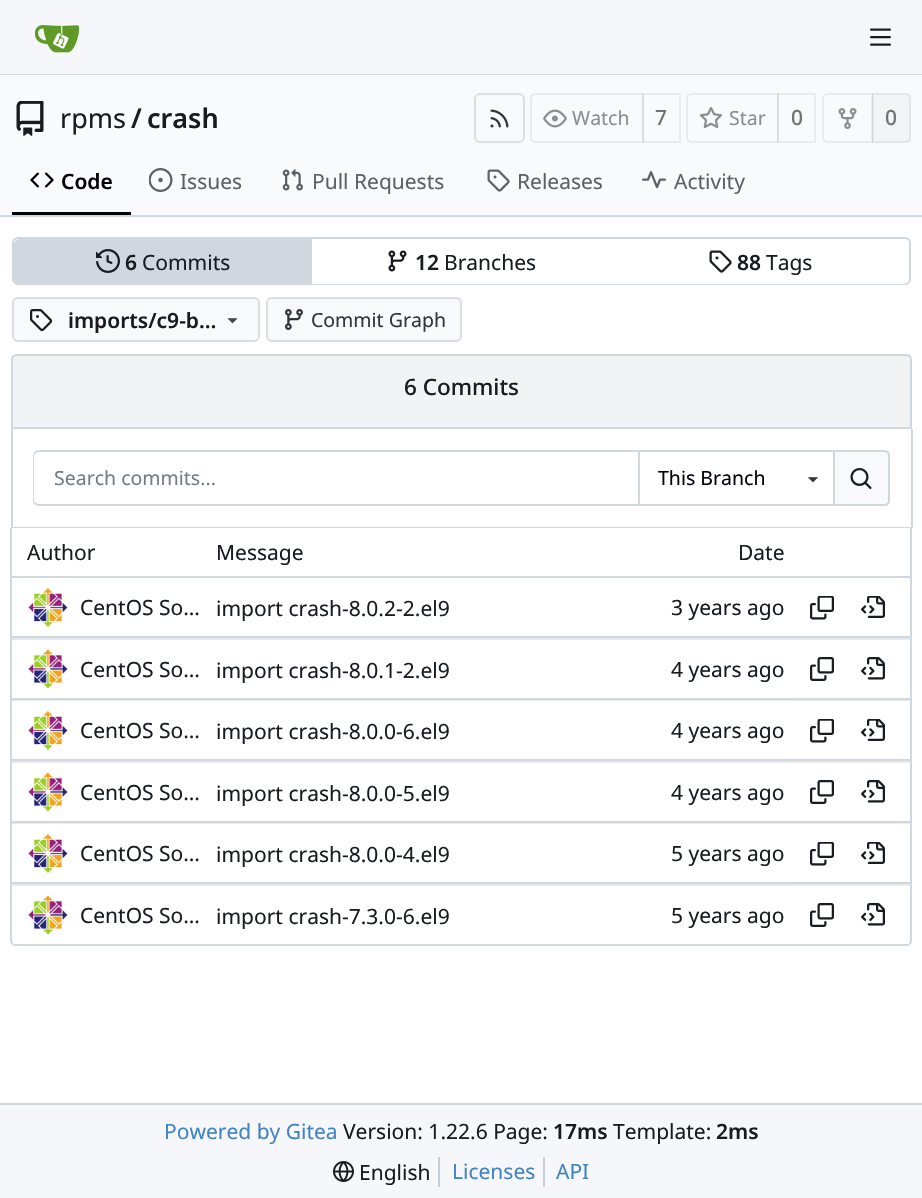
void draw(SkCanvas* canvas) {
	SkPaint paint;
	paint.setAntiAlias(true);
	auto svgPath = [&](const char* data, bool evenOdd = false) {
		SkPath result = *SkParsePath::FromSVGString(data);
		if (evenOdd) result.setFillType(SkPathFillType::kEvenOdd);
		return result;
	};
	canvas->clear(0xffffffff);
	paint.setColor(0xfff6f7fa);
	canvas->drawRect(SkRect::MakeXYWH(0, 0, 922, 74), paint);
	paint.setColor(0xffd0d7de);
	canvas->drawRect(SkRect::MakeXYWH(0, 74, 922, 1), paint);
	canvas->drawImageRect(SkImages::DeferredFromEncodedData(SkData::MakeFromFileName("img1.png")), SkRect::MakeXYWH(35, 25, 45, 28), SkSamplingOptions());
	canvas->drawImageRect(SkImages::DeferredFromEncodedData(SkData::MakeFromFileName("img2.png")), SkRect::MakeXYWH(870, 28, 21, 18), SkSamplingOptions());
	paint.setColor(0xfff9fafb);
	canvas->drawRect(SkRect::MakeXYWH(0, 75, 922, 140), paint);
	canvas->drawImageRect(SkImages::DeferredFromEncodedData(SkData::MakeFromFileName("img3.png")), SkRect::MakeXYWH(16, 101, 28, 35), SkSamplingOptions());
	SkFont f1(fontMgr->matchFamilyStyle("Noto Sans", SkFontStyle::Normal()), 27);
	f1.setSubpixel(true);
	paint.setColor(0xff181c21);
	canvas->drawString("rpms", 60, 128, f1, paint);
	SkFont f2(fontMgr->matchFamilyStyle("Noto Sans", SkFontStyle(600, SkFontStyle::kNormal_Width, SkFontStyle::kUpright_Slant)), 27);
	f2.setSubpixel(true);
	canvas->drawString("/", 131, 128, f2, paint);
	canvas->drawString("crash", 147, 128, f2, paint);
	paint.setStroke(true);
	paint.setStrokeWidth(2);
	paint.setColor(0xffdddee1);
	canvas->drawRoundRect(SkRect::MakeXYWH(475, 94, 49, 48), 5, 5, paint);
	canvas->drawImageRect(SkImages::DeferredFromEncodedData(SkData::MakeFromFileName("img4.png")), SkRect::MakeXYWH(490, 109, 19, 19), SkSamplingOptions());
	paint.setColor(0xffe9eaed);
	canvas->drawPath(svgPath("M536 94H643V142H536C533 142 531 140 531 137V99C531 96 533 94 536 94Z"), paint);
	canvas->drawImageRect(SkImages::DeferredFromEncodedData(SkData::MakeFromFileName("img5.png")), SkRect::MakeXYWH(543, 109, 24, 19), SkSamplingOptions());
	SkFont f3(fontMgr->matchFamilyStyle("Noto Sans", SkFontStyle::Normal()), 19.5);
	f3.setSubpixel(true);
	paint.setStroke(false);
	paint.setColor(0xff8a8e91);
	canvas->drawString("Watch", 572, 125, f3, paint);
	paint.setStroke(true);
	paint.setColor(0x0f000017);
	canvas->drawRect(SkRect::MakeXYWH(643, 94, 37, 48), paint);
	SkFont f4(fontMgr->matchFamilyStyle("Noto Sans", SkFontStyle(500, SkFontStyle::kNormal_Width, SkFontStyle::kUpright_Slant)), 21);
	f4.setSubpixel(true);
	paint.setStroke(false);
	paint.setColor(0xff717376);
	canvas->drawString("7", 655, 125, f4, paint);
	paint.setStroke(true);
	paint.setColor(0xffe9eaed);
	canvas->drawPath(svgPath("M692 94H778V142H692C689 142 687 140 687 137V99C687 96 689 94 692 94Z"), paint);
	canvas->drawImageRect(SkImages::DeferredFromEncodedData(SkData::MakeFromFileName("img6.png")), SkRect::MakeXYWH(699, 107, 24, 22), SkSamplingOptions());
	paint.setStroke(false);
	paint.setColor(0xff8a8e91);
	canvas->drawString("Star", 729, 125, f3, paint);
	paint.setStroke(true);
	paint.setColor(0x0f000017);
	canvas->drawRect(SkRect::MakeXYWH(778, 94, 37, 48), paint);
	paint.setStroke(false);
	paint.setColor(0xff717376);
	canvas->drawString("0", 791, 125, f4, paint);
	paint.setStroke(true);
	paint.setColor(0xffe9eaed);
	canvas->drawPath(svgPath("M828 94H872V142H828C825 142 823 140 823 137V99C823 96 825 94 828 94Z"), paint);
	canvas->drawImageRect(SkImages::DeferredFromEncodedData(SkData::MakeFromFileName("img7.png")), SkRect::MakeXYWH(838, 108, 19, 21), SkSamplingOptions());
	paint.setStroke(false);
	paint.setColor(0x0a707171);
	canvas->drawRect(SkRect::MakeXYWH(872, 93, 39, 50), paint);
	paint.setStroke(true);
	paint.setColor(0x1c70717e);
	canvas->drawPath(svgPath("M873 94H905C908 94 910 96 910 99V137C910 140 908 142 905 142H873Z"), paint);
	paint.setStroke(false);
	paint.setColor(0xff717376);
	canvas->drawString("0", 885, 125, f4, paint);
	paint.setColor(0xff01050a);
	canvas->drawRect(SkRect::MakeXYWH(12, 212, 119, 3), paint);
	canvas->drawImageRect(SkImages::DeferredFromEncodedData(SkData::MakeFromFileName("img8.png")), SkRect::MakeXYWH(30, 172, 24, 16), SkSamplingOptions());
	SkFont f5(fontMgr->matchFamilyStyle("Noto Sans", SkFontStyle(600, SkFontStyle::kNormal_Width, SkFontStyle::kUpright_Slant)), 21);
	f5.setSubpixel(true);
	canvas->drawString("Code", 61, 189, f5, paint);
	canvas->drawImageRect(SkImages::DeferredFromEncodedData(SkData::MakeFromFileName("img9.png")), SkRect::MakeXYWH(149, 168, 24, 24), SkSamplingOptions());
	SkFont f6(fontMgr->matchFamilyStyle("Noto Sans", SkFontStyle::Normal()), 21);
	f6.setSubpixel(true);
	paint.setColor(0xff5b6167);
	canvas->drawString("Issues", 180, 189, f6, paint);
	canvas->drawImageRect(SkImages::DeferredFromEncodedData(SkData::MakeFromFileName("img10.png")), SkRect::MakeXYWH(282, 169, 21, 22), SkSamplingOptions());
	canvas->drawString("Pull Requests", 312, 189, f6, paint);
	canvas->drawImageRect(SkImages::DeferredFromEncodedData(SkData::MakeFromFileName("img11.png")), SkRect::MakeXYWH(487, 169, 23, 23), SkSamplingOptions());
	canvas->drawString("Releases", 517, 189, f6, paint);
	canvas->drawImageRect(SkImages::DeferredFromEncodedData(SkData::MakeFromFileName("img12.png")), SkRect::MakeXYWH(642, 171, 24, 18), SkSamplingOptions());
	canvas->drawString("Activity", 674, 189, f6, paint);
	paint.setColor(0xffd0d7de);
	canvas->drawRect(SkRect::MakeXYWH(0, 215, 922, 2), paint);
	paint.setStroke(true);
	canvas->drawRoundRect(SkRect::MakeXYWH(13, 238, 897, 46), 5, 5, paint);
	paint.setStroke(false);
	paint.setColor(0xffffffff);
	canvas->drawRoundRect(SkRect::MakeXYWH(14, 239, 895, 45), 6, 6, paint);
	paint.setColor(0xffd0d7de);
	canvas->drawPath(svgPath("M20 239H312V284H20C16.5 284 14 281.5 14 278V245C14 241.5 16.5 239 20 239Z"), paint);
	canvas->drawImageRect(SkImages::DeferredFromEncodedData(SkData::MakeFromFileName("img13.png")), SkRect::MakeXYWH(96, 249, 24, 24), SkSamplingOptions());
	paint.setColor(0xff181c21);
	canvas->drawString("6", 125, 270, f5, paint);
	canvas->drawString("Commits", 142, 270, f6, paint);
	canvas->drawImageRect(SkImages::DeferredFromEncodedData(SkData::MakeFromFileName("img14.png")), SkRect::MakeXYWH(388, 250, 19, 22), SkSamplingOptions());
	canvas->drawString("12", 415, 270, f5, paint);
	canvas->drawString("Branches", 444, 270, f6, paint);
	canvas->drawImageRect(SkImages::DeferredFromEncodedData(SkData::MakeFromFileName("img15.png")), SkRect::MakeXYWH(709, 250, 23, 23), SkSamplingOptions());
	canvas->drawString("88", 737, 270, f5, paint);
	canvas->drawString("Tags", 766, 270, f6, paint);
	paint.setColor(0xfff8f9fb);
	canvas->drawRoundRect(SkRect::MakeXYWH(13, 298, 246, 43), 5, 5, paint);
	paint.setStroke(true);
	paint.setColor(0xffdcdde1);
	canvas->drawRoundRect(SkRect::MakeXYWH(13, 298, 246, 43), 5, 5, paint);
	canvas->drawImageRect(SkImages::DeferredFromEncodedData(SkData::MakeFromFileName("img16.png")), SkRect::MakeXYWH(30, 309, 23, 23), SkSamplingOptions());
	paint.setStroke(false);
	paint.setColor(0xff181c21);
	canvas->drawString("imports/c9-b…", 68, 328, f5, paint);
	canvas->drawImageRect(SkImages::DeferredFromEncodedData(SkData::MakeFromFileName("img17.png")), SkRect::MakeXYWH(227, 318, 11, 6), SkSamplingOptions());
	paint.setColor(0xfff8f9fb);
	canvas->drawRoundRect(SkRect::MakeXYWH(267, 298, 194, 43), 5, 5, paint);
	paint.setStroke(true);
	paint.setColor(0xffdcdde1);
	canvas->drawRoundRect(SkRect::MakeXYWH(267, 298, 194, 43), 5, 5, paint);
	canvas->drawImageRect(SkImages::DeferredFromEncodedData(SkData::MakeFromFileName("img18.png")), SkRect::MakeXYWH(285, 309, 18, 21), SkSamplingOptions());
	paint.setStroke(false);
	paint.setColor(0xff30363b);
	canvas->drawString("Commit Graph", 311, 327, f3, paint);
	paint.setColor(0xfff1f3f5);
	canvas->drawPath(svgPath("M17 355H906C909 355 911 357 911 360V428H12V360C12 357 14 355 17 355Z"), paint);
	paint.setStroke(true);
	paint.setColor(0xffd0d7de);
	canvas->drawPath(svgPath("M17 355H906C909 355 911 357 911 360V428H12V360C12 357 14 355 17 355Z"), paint);
	SkFont f7(fontMgr->matchFamilyStyle("Noto Sans", SkFontStyle(500, SkFontStyle::kNormal_Width, SkFontStyle::kUpright_Slant)), 22.5);
	f7.setSubpixel(true);
	paint.setStroke(false);
	paint.setColor(0xff181c21);
	canvas->drawString("6 Commits", 404, 395, f7, paint);
	paint.setColor(0xffd0d7de);
	canvas->drawRect(SkRect::MakeXYWH(911, 429, 2, 99), paint);
	canvas->drawRect(SkRect::MakeXYWH(11, 527, 901, 1), paint);
	canvas->drawRect(SkRect::MakeXYWH(11, 429, 2, 99), paint);
	canvas->drawPath(svgPath("M39 450H638V506H39C36 506 33 503 33 500V456C33 453 36 450 39 450ZM39 452H638V504H39C37 504 34 502 34 500V456C34 454 37 452 39 452Z", true), paint);
	paint.setColor(0xff747c84);
	canvas->drawString("Search commits...", 54, 485, f3, paint);
	paint.setColor(0xffd0d7de);
	canvas->drawRect(SkRect::MakeXYWH(638, 450, 195, 2), paint);
	canvas->drawRect(SkRect::MakeXYWH(638, 504, 195, 2), paint);
	canvas->drawRect(SkRect::MakeXYWH(638, 450, 2, 56), paint);
	paint.setColor(0xff01050a);
	canvas->drawString("This Branch", 658, 485, f3, paint);
	canvas->drawImageRect(SkImages::DeferredFromEncodedData(SkData::MakeFromFileName("img19.png")), SkRect::MakeXYWH(808, 477, 10, 6), SkSamplingOptions());
	paint.setColor(0xfff8f9fb);
	canvas->drawPath(svgPath("M834 451H884C887 451 889 453 889 456V500C889 503 887 505 884 505H834Z"), paint);
	paint.setStroke(true);
	paint.setColor(0xffd0d7de);
	canvas->drawPath(svgPath("M834 451H884C887 451 889 453 889 456V500C889 503 887 505 884 505H834Z"), paint);
	canvas->drawImageRect(SkImages::DeferredFromEncodedData(SkData::MakeFromFileName("img20.png")), SkRect::MakeXYWH(850, 468, 22, 21), SkSamplingOptions());
	paint.setStroke(false);
	paint.setColor(0xffe8ebef);
	canvas->drawRect(SkRect::MakeXYWH(12, 823, 780, 1), paint);
	canvas->drawRect(SkRect::MakeXYWH(12, 700, 780, 1), paint);
	paint.setColor(0xffd0d7de);
	canvas->drawPath(svgPath("M10 528H912V940C912 944 909 946 906 946H16C13 946 10 944 10 940ZM12 528H910V940C910 943 908 945 906 945H16C14 945 12 943 12 940Z", true), paint);
	canvas->drawRect(SkRect::MakeXYWH(12, 576, 899, 2), paint);
	paint.setColor(0xff181c21);
	canvas->drawString("Author", 27, 560, f6, paint);
	canvas->drawString("Message", 216, 560, f6, paint);
	canvas->drawString("Date", 738, 560, f6, paint);
	paint.setColor(0xffd0d7de);
	canvas->drawRect(SkRect::MakeXYWH(12, 636, 899, 2), paint);
	canvas->drawImageRect(SkImages::DeferredFromEncodedData(SkData::MakeFromFileName("img21.png")), SkRect::MakeXYWH(28, 588, 40, 39), SkSamplingOptions());
	paint.setColor(0xff181c21);
	canvas->drawString("CentOS So…", 80, 615, f6, paint);
	canvas->drawString("import crash-8.0.2-2.el9", 216, 616, f6, paint);
	canvas->drawString("3 years ago", 671, 615, f6, paint);
	canvas->drawImageRect(SkImages::DeferredFromEncodedData(SkData::MakeFromFileName("img22.png")), SkRect::MakeXYWH(810, 596, 24, 24), SkSamplingOptions());
	canvas->drawImageRect(SkImages::DeferredFromEncodedData(SkData::MakeFromFileName("img23.png")), SkRect::MakeXYWH(861, 596, 24, 22), SkSamplingOptions());
	paint.setColor(0xffd0d7de);
	canvas->drawRect(SkRect::MakeXYWH(12, 698, 899, 2), paint);
	paint.setColor(0xffe5e8ec);
	canvas->drawRect(SkRect::MakeXYWH(12, 638, 780, 2), paint);
	canvas->drawImageRect(SkImages::DeferredFromEncodedData(SkData::MakeFromFileName("img24.png")), SkRect::MakeXYWH(28, 649, 40, 40), SkSamplingOptions());
	paint.setColor(0xff181c21);
	canvas->drawString("CentOS So…", 80, 677, f6, paint);
	canvas->drawString("import crash-8.0.1-2.el9", 216, 678, f6, paint);
	canvas->drawString("4 years ago", 671, 677, f6, paint);
	paint.setColor(0x80d0d7de);
	canvas->drawRect(SkRect::MakeXYWH(792, 638, 119, 2), paint);
	canvas->drawImageRect(SkImages::DeferredFromEncodedData(SkData::MakeFromFileName("img25.png")), SkRect::MakeXYWH(810, 657, 24, 24), SkSamplingOptions());
	canvas->drawImageRect(SkImages::DeferredFromEncodedData(SkData::MakeFromFileName("img26.png")), SkRect::MakeXYWH(861, 657, 24, 23), SkSamplingOptions());
	paint.setColor(0xffd0d7de);
	canvas->drawRect(SkRect::MakeXYWH(12, 759, 899, 2), paint);
	canvas->drawImageRect(SkImages::DeferredFromEncodedData(SkData::MakeFromFileName("img21.png")), SkRect::MakeXYWH(28, 711, 40, 39), SkSamplingOptions());
	paint.setColor(0xff181c21);
	canvas->drawString("CentOS So…", 80, 738, f6, paint);
	canvas->drawString("import crash-8.0.0-6.el9", 216, 739, f6, paint);
	canvas->drawString("4 years ago", 671, 738, f6, paint);
	paint.setColor(0x80d0d7de);
	canvas->drawRect(SkRect::MakeXYWH(792, 700, 119, 1), paint);
	canvas->drawImageRect(SkImages::DeferredFromEncodedData(SkData::MakeFromFileName("img22.png")), SkRect::MakeXYWH(810, 719, 24, 24), SkSamplingOptions());
	canvas->drawImageRect(SkImages::DeferredFromEncodedData(SkData::MakeFromFileName("img23.png")), SkRect::MakeXYWH(861, 719, 24, 22), SkSamplingOptions());
	paint.setColor(0xffd0d7de);
	canvas->drawRect(SkRect::MakeXYWH(12, 821, 899, 2), paint);
	paint.setColor(0xffe5e8ec);
	canvas->drawRect(SkRect::MakeXYWH(12, 761, 780, 2), paint);
	canvas->drawImageRect(SkImages::DeferredFromEncodedData(SkData::MakeFromFileName("img24.png")), SkRect::MakeXYWH(28, 772, 40, 40), SkSamplingOptions());
	paint.setColor(0xff181c21);
	canvas->drawString("CentOS So…", 80, 800, f6, paint);
	canvas->drawString("import crash-8.0.0-5.el9", 216, 801, f6, paint);
	canvas->drawString("4 years ago", 671, 800, f6, paint);
	paint.setColor(0x80d0d7de);
	canvas->drawRect(SkRect::MakeXYWH(792, 761, 119, 2), paint);
	canvas->drawImageRect(SkImages::DeferredFromEncodedData(SkData::MakeFromFileName("img25.png")), SkRect::MakeXYWH(810, 780, 24, 24), SkSamplingOptions());
	canvas->drawImageRect(SkImages::DeferredFromEncodedData(SkData::MakeFromFileName("img26.png")), SkRect::MakeXYWH(861, 780, 24, 23), SkSamplingOptions());
	paint.setColor(0xffd0d7de);
	canvas->drawRect(SkRect::MakeXYWH(12, 882, 899, 2), paint);
	canvas->drawImageRect(SkImages::DeferredFromEncodedData(SkData::MakeFromFileName("img21.png")), SkRect::MakeXYWH(28, 834, 40, 39), SkSamplingOptions());
	paint.setColor(0xff181c21);
	canvas->drawString("CentOS So…", 80, 861, f6, paint);
	canvas->drawString("import crash-8.0.0-4.el9", 216, 862, f6, paint);
	canvas->drawString("5 years ago", 671, 861, f6, paint);
	paint.setColor(0x80d0d7de);
	canvas->drawRect(SkRect::MakeXYWH(792, 823, 119, 1), paint);
	canvas->drawImageRect(SkImages::DeferredFromEncodedData(SkData::MakeFromFileName("img22.png")), SkRect::MakeXYWH(810, 842, 24, 24), SkSamplingOptions());
	canvas->drawImageRect(SkImages::DeferredFromEncodedData(SkData::MakeFromFileName("img23.png")), SkRect::MakeXYWH(861, 842, 24, 22), SkSamplingOptions());
	canvas->save();
	canvas->clipPath(svgPath("M12 528H911V940C911 943 909 945 906 945H17C14 945 12 943 12 940Z"), true);
	paint.setColor(0xffd0d7de);
	canvas->drawRect(SkRect::MakeXYWH(12, 944, 899, 1), paint);
	canvas->restore();
	paint.setColor(0xffe5e8ec);
	canvas->drawRect(SkRect::MakeXYWH(12, 884, 780, 2), paint);
	canvas->drawImageRect(SkImages::DeferredFromEncodedData(SkData::MakeFromFileName("img27.png")), SkRect::MakeXYWH(28, 895, 40, 40), SkSamplingOptions());
	paint.setColor(0xff181c21);
	canvas->drawString("CentOS So…", 80, 923, f6, paint);
	canvas->drawString("import crash-7.3.0-6.el9", 216, 924, f6, paint);
	canvas->drawString("5 years ago", 671, 923, f6, paint);
	paint.setColor(0x80d0d7de);
	canvas->drawRect(SkRect::MakeXYWH(792, 884, 119, 2), paint);
	canvas->drawImageRect(SkImages::DeferredFromEncodedData(SkData::MakeFromFileName("img25.png")), SkRect::MakeXYWH(810, 903, 24, 24), SkSamplingOptions());
	canvas->drawImageRect(SkImages::DeferredFromEncodedData(SkData::MakeFromFileName("img28.png")), SkRect::MakeXYWH(861, 903, 24, 23), SkSamplingOptions());
	paint.setColor(0xfff6f7fa);
	canvas->drawRect(SkRect::MakeXYWH(0, 1105, 922, 93), paint);
	paint.setColor(0xffd0d7de);
	canvas->drawRect(SkRect::MakeXYWH(0, 1103, 922, 2), paint);
	paint.setColor(0xff4183c4);
	canvas->drawString("Powered by Gitea", 164, 1139, f6, paint);
	paint.setColor(0xff181c21);
	canvas->drawString("Version: 1.22.6 Page:", 343, 1139, f6, paint);
	canvas->drawString("17ms", 553, 1139, f5, paint);
	canvas->drawString("Template:", 613, 1139, f6, paint);
	canvas->drawString("2ms", 716, 1139, f5, paint);
	canvas->drawImageRect(SkImages::DeferredFromEncodedData(SkData::MakeFromFileName("img29.png")), SkRect::MakeXYWH(333, 1161, 21, 21), SkSamplingOptions());
	canvas->drawString("English", 359, 1180, f6, paint);
	paint.setColor(0xffc7ced5);
	canvas->drawRect(SkRect::MakeXYWH(438, 1157, 2, 30), paint);
	paint.setColor(0xff4183c4);
	canvas->drawString("Licenses", 452, 1179, f6, paint);
	paint.setColor(0xffc7ced5);
	canvas->drawRect(SkRect::MakeXYWH(543, 1157, 2, 30), paint);
	paint.setColor(0xff4183c4);
	canvas->drawString("API", 556, 1179, f6, paint);
}
